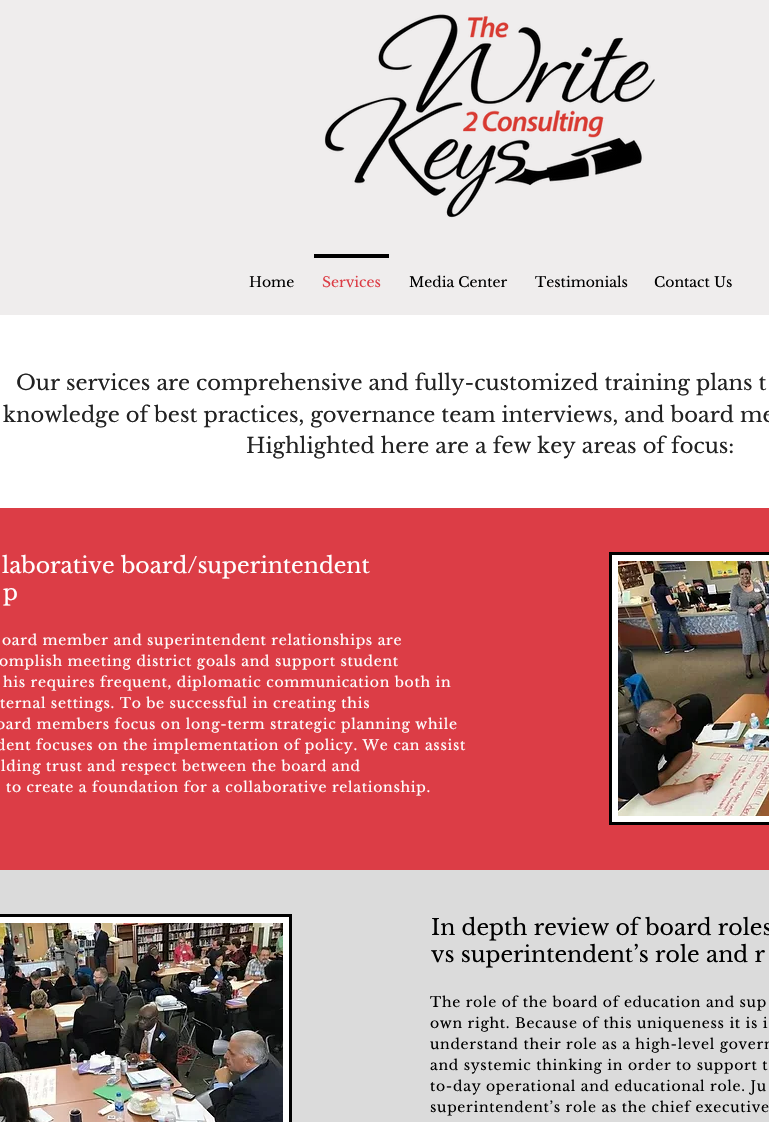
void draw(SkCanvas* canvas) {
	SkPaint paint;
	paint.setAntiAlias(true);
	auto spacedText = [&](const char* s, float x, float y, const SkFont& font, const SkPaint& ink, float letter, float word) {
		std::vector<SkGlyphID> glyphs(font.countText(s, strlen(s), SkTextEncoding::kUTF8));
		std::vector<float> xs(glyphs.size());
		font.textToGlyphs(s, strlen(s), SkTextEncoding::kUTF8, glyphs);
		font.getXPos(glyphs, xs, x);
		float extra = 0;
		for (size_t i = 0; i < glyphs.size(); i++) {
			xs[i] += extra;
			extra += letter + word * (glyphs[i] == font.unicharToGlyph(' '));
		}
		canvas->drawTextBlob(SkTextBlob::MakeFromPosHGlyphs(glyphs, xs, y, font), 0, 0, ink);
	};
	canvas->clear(0xffffffff);
	paint.setColor(0xffefeded);
	canvas->drawRect(SkRect::MakeXYWH(0, 0, 769, 315), paint);
	canvas->drawImageRect(SkImages::DeferredFromEncodedData(SkData::MakeFromFileName("img1.png")), SkRect::MakeXYWH(324, 14, 331, 204), SkSamplingOptions());
	SkFont f1(fontMgr->matchFamilyStyle("Libre Baskerville", SkFontStyle::Normal()), 14);
	f1.setSubpixel(true);
	paint.setColor(0xff000000);
	canvas->drawString("Home", 249, 287, f1, paint);
	canvas->drawRect(SkRect::MakeXYWH(314, 254, 75, 4), paint);
	paint.setColor(0xffdc3d46);
	canvas->drawString("Services", 322, 287, f1, paint);
	paint.setColor(0xff000000);
	canvas->drawString("Media Center", 409, 287, f1, paint);
	canvas->drawString("Testimonials", 535, 287, f1, paint);
	canvas->drawString("Contact Us", 654, 287, f1, paint);
	SkFont f2(fontMgr->matchFamilyStyle("Libre Baskerville", SkFontStyle::Normal()), 21);
	f2.setSubpixel(true);
	paint.setColor(0xff222222);
	canvas->drawString("Our services are comprehensive and fully-customized training plans t", 16, 390, f2, paint);
	canvas->drawString("knowledge of best practices, governance team interviews, and board me", 3, 422, f2, paint);
	canvas->drawString("Highlighted here are a few key areas of focus:", 246, 453, f2, paint);
	paint.setColor(0xffdc3d46);
	canvas->drawRect(SkRect::MakeXYWH(0, 508, 769, 362), paint);
	SkFont f3(fontMgr->matchFamilyStyle("Libre Baskerville", SkFontStyle::Normal()), 22);
	f3.setSubpixel(true);
	paint.setColor(0xffffffff);
	canvas->drawString("laborative board/superintendent", 2, 573, f3, paint);
	canvas->drawString("p", 3, 600, f3, paint);
	canvas->drawRect(SkRect::MakeXYWH(610.5, 553.5, 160, 270), paint);
	paint.setStroke(true);
	paint.setStrokeWidth(3);
	paint.setColor(0xff000000);
	canvas->drawRect(SkRect::MakeXYWH(610.5, 553.5, 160, 270), paint);
	canvas->drawImageRect(SkImages::DeferredFromEncodedData(SkData::MakeFromFileName("img2.png")), SkRect::MakeXYWH(618, 561, 151, 255), SkSamplingOptions());
	paint.setStroke(false);
	paint.setColor(0xffffffff);
	spacedText("oard member and superintendent relationships are", 2, 645, f1, paint, 0.7, 0);
	spacedText("omplish meeting district goals and support student", -1, 666, f1, paint, 0.7, 0);
	spacedText("his requires frequent, diplomatic communication both in", 3, 687, f1, paint, 0.7, 0);
	spacedText("ternal settings. To be successful in creating this", 0, 708, f1, paint, 0.7, 0);
	spacedText("oard members focus on long-term strategic planning while", -4, 729, f1, paint, 0.7, 0);
	spacedText("dent focuses on the implementation of policy. We can assist", -4, 750, f1, paint, 0.7, 0);
	spacedText("lding trust and respect between the board and", 1, 771, f1, paint, 0.7, 0);
	spacedText("to create a foundation for a collaborative relationship.", 6, 792, f1, paint, 0.7, 0);
	paint.setColor(0xffdbdbdb);
	canvas->drawRect(SkRect::MakeXYWH(0, 870, 769, 252), paint);
	paint.setColor(0xffffffff);
	canvas->drawRect(SkRect::MakeXYWH(-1.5, 915.5, 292, 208), paint);
	paint.setStroke(true);
	paint.setColor(0xff000000);
	canvas->drawRect(SkRect::MakeXYWH(-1.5, 915.5, 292, 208), paint);
	canvas->drawImageRect(SkImages::DeferredFromEncodedData(SkData::MakeFromFileName("img3.png")), SkRect::MakeXYWH(0, 923, 283, 199), SkSamplingOptions());
	paint.setStroke(false);
	canvas->drawString("In depth review of board roles", 431, 935, f3, paint);
	canvas->drawString("vs superintendent’s role and r", 431, 962, f3, paint);
	spacedText("The role of the board of education and sup", 430, 1007, f1, paint, 0.7, 0);
	spacedText("own right. Because of this uniqueness it is i", 430, 1028, f1, paint, 0.7, 0);
	spacedText("understand their role as a high-level govern", 430, 1049, f1, paint, 0.7, 0);
	spacedText("and systemic thinking in order to support t", 430, 1070, f1, paint, 0.7, 0);
	spacedText("to-day operational and educational role. Ju", 430, 1091, f1, paint, 0.7, 0);
	spacedText("superintendent’s role as the chief executive", 430, 1112, f1, paint, 0.7, 0);
}
